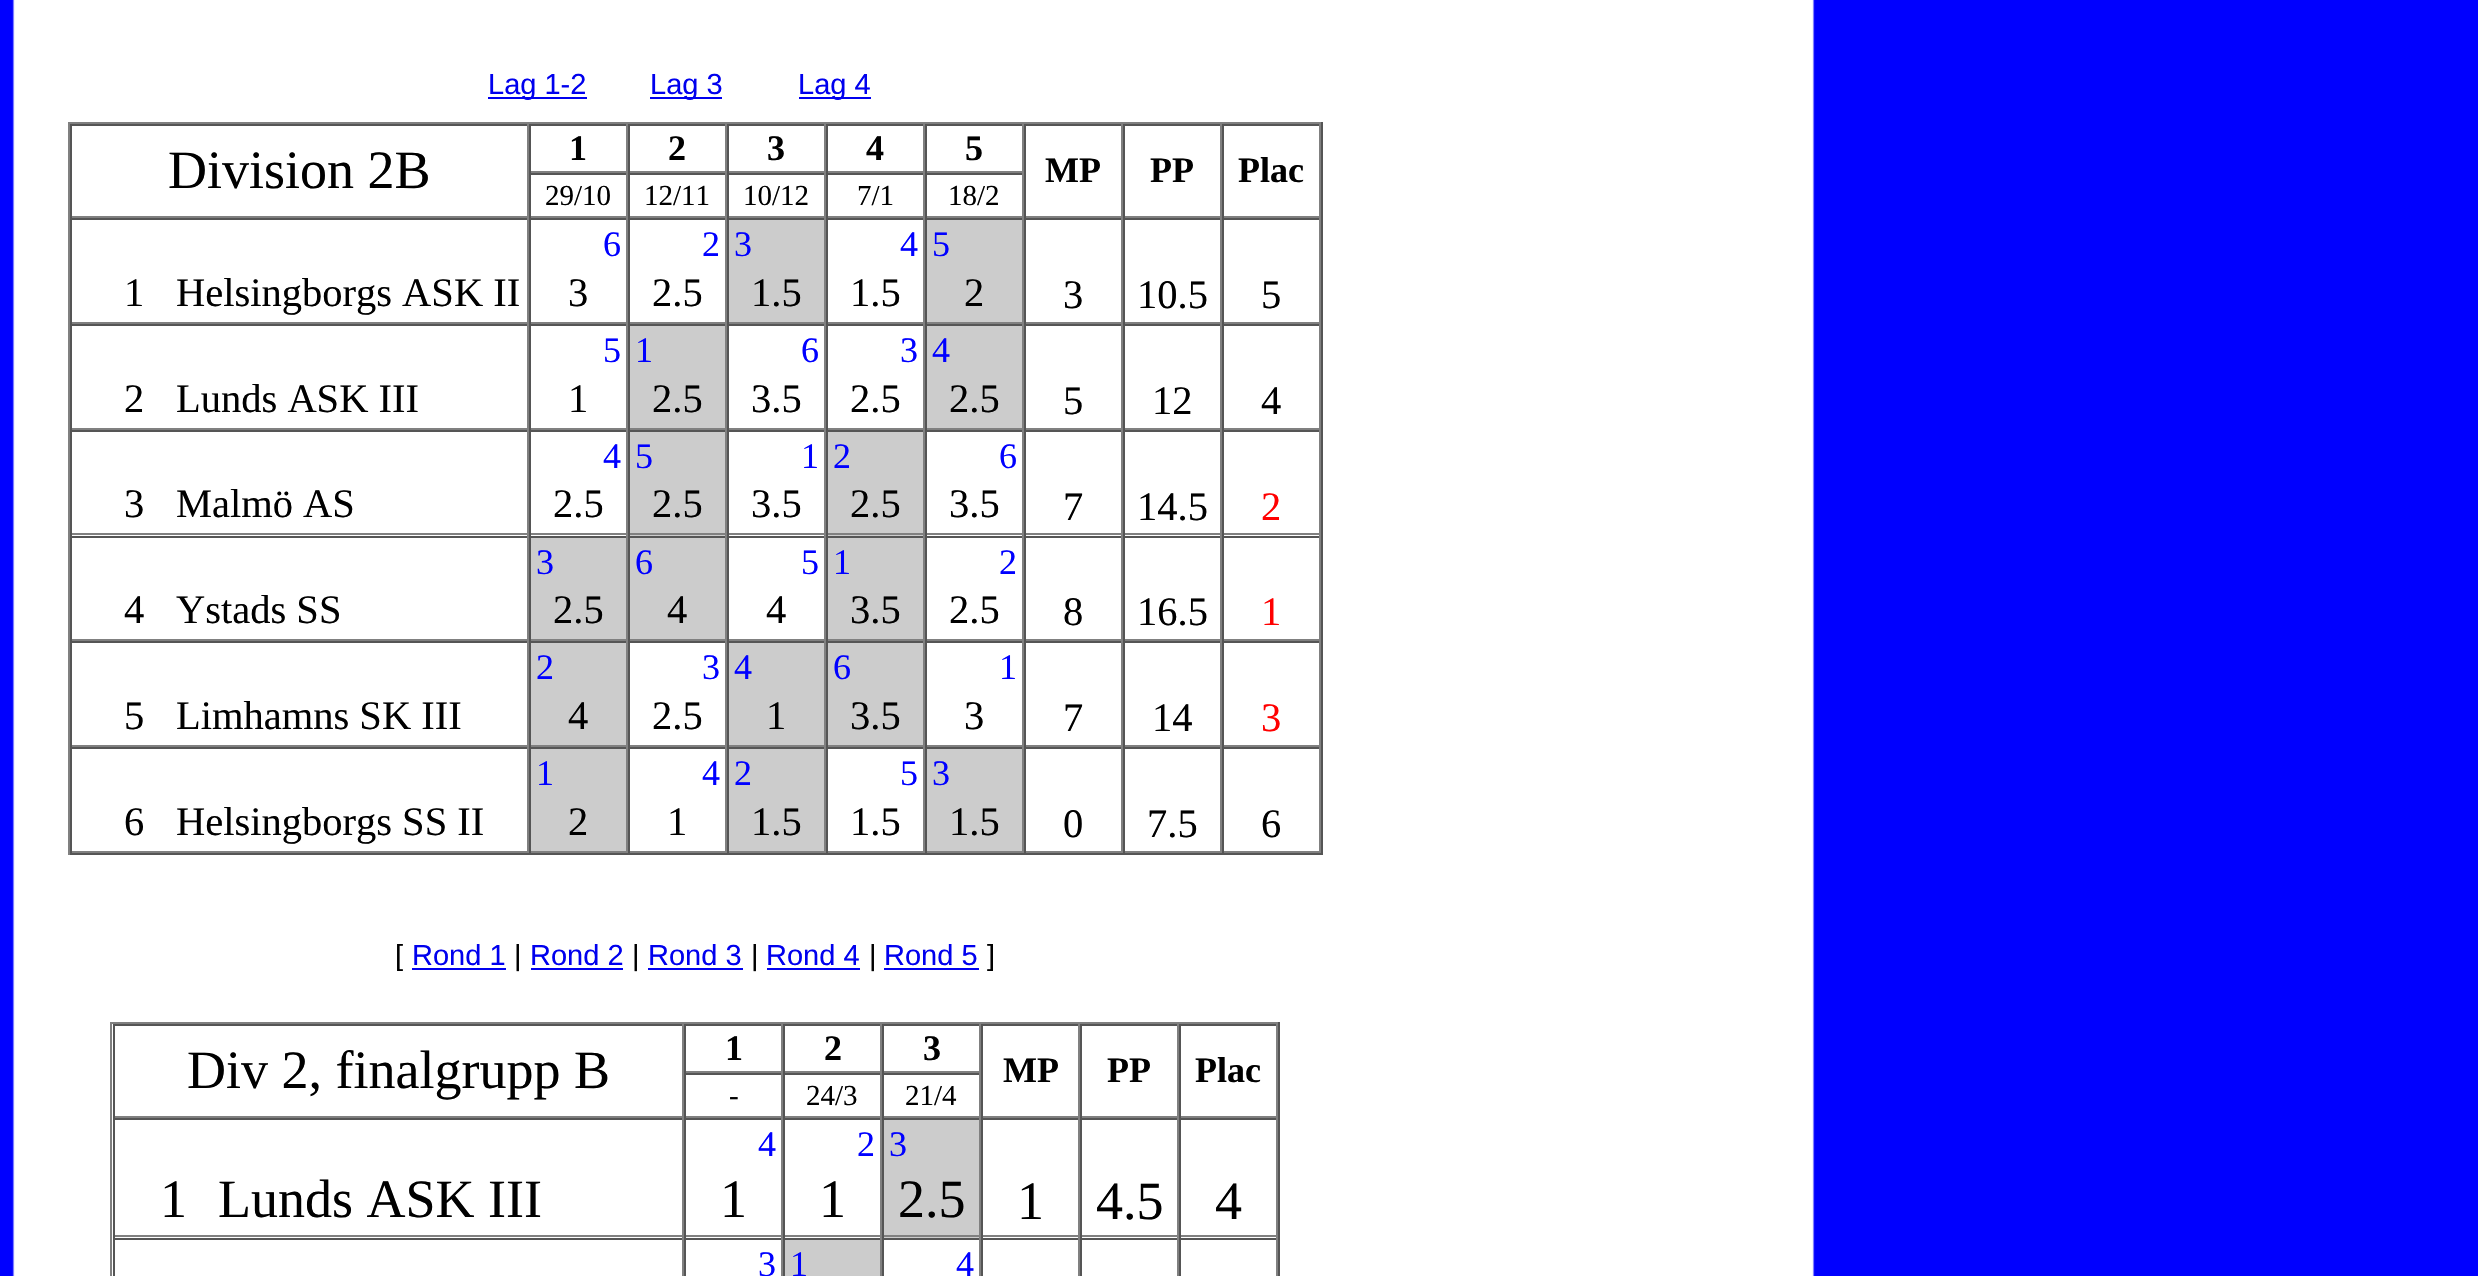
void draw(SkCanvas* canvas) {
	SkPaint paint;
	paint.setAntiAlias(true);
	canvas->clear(0xffffffff);
	canvas->drawImageRect(SkImages::DeferredFromEncodedData(SkData::MakeFromFileName("img1.png")), SkRect::MakeXYWH(0, 0, 2478, 1276), SkSamplingOptions());
	paint.setColor(0xff0000ee);
	canvas->drawRect(SkRect::MakeXYWH(488, 97, 99, 2), paint);
	SkFont f1(fontMgr->matchFamilyStyle("Liberation Sans", SkFontStyle::Normal()), 29);
	f1.setSubpixel(true);
	canvas->drawString("Lag 1-2", 488, 94, f1, paint);
	canvas->drawRect(SkRect::MakeXYWH(650, 97, 72, 2), paint);
	canvas->drawString("Lag 3", 650, 94, f1, paint);
	canvas->drawRect(SkRect::MakeXYWH(799, 97, 72, 2), paint);
	canvas->drawString("Lag 4", 798, 94, f1, paint);
	paint.setColor(0xff808080);
	canvas->drawRect(SkRect::MakeXYWH(68, 122, 1255, 2), paint);
	paint.setColor(0xff555555);
	canvas->drawRect(SkRect::MakeXYWH(1321, 122, 2, 733), paint);
	canvas->drawRect(SkRect::MakeXYWH(68, 853, 1255, 2), paint);
	paint.setColor(0xff808080);
	canvas->drawRect(SkRect::MakeXYWH(68, 122, 2, 733), paint);
	paint.setColor(0xff555555);
	canvas->drawRect(SkRect::MakeXYWH(70, 124, 1251, 2), paint);
	paint.setColor(0xff808080);
	canvas->drawRect(SkRect::MakeXYWH(626, 124, 2, 49), paint);
	canvas->drawRect(SkRect::MakeXYWH(529, 171, 99, 2), paint);
	paint.setColor(0xff555555);
	canvas->drawRect(SkRect::MakeXYWH(529, 124, 2, 49), paint);
	SkFont f2(fontMgr->matchFamilyStyle("Liberation Serif", SkFontStyle::Bold()), 36);
	f2.setSubpixel(true);
	paint.setColor(0xff000000);
	canvas->drawString("1", 569, 160, f2, paint);
	paint.setColor(0xff808080);
	canvas->drawRect(SkRect::MakeXYWH(725, 124, 2, 49), paint);
	canvas->drawRect(SkRect::MakeXYWH(628, 171, 99, 2), paint);
	paint.setColor(0xff555555);
	canvas->drawRect(SkRect::MakeXYWH(628, 124, 2, 49), paint);
	paint.setColor(0xff000000);
	canvas->drawString("2", 668, 160, f2, paint);
	paint.setColor(0xff808080);
	canvas->drawRect(SkRect::MakeXYWH(824, 124, 2, 49), paint);
	canvas->drawRect(SkRect::MakeXYWH(727, 171, 99, 2), paint);
	paint.setColor(0xff555555);
	canvas->drawRect(SkRect::MakeXYWH(727, 124, 2, 49), paint);
	paint.setColor(0xff000000);
	canvas->drawString("3", 767, 160, f2, paint);
	paint.setColor(0xff808080);
	canvas->drawRect(SkRect::MakeXYWH(923, 124, 2, 49), paint);
	canvas->drawRect(SkRect::MakeXYWH(826, 171, 99, 2), paint);
	paint.setColor(0xff555555);
	canvas->drawRect(SkRect::MakeXYWH(826, 124, 2, 49), paint);
	paint.setColor(0xff000000);
	canvas->drawString("4", 866, 160, f2, paint);
	paint.setColor(0xff808080);
	canvas->drawRect(SkRect::MakeXYWH(1022, 124, 2, 49), paint);
	canvas->drawRect(SkRect::MakeXYWH(925, 171, 99, 2), paint);
	paint.setColor(0xff555555);
	canvas->drawRect(SkRect::MakeXYWH(925, 124, 2, 49), paint);
	paint.setColor(0xff000000);
	canvas->drawString("5", 965, 160, f2, paint);
	paint.setColor(0xff808080);
	canvas->drawRect(SkRect::MakeXYWH(527, 124, 2, 94), paint);
	canvas->drawRect(SkRect::MakeXYWH(70, 216, 459, 2), paint);
	paint.setColor(0xff555555);
	canvas->drawRect(SkRect::MakeXYWH(70, 124, 2, 94), paint);
	SkFont f3(fontMgr->matchFamilyStyle("Liberation Serif", SkFontStyle::Normal()), 54);
	f3.setSubpixel(true);
	paint.setColor(0xff000000);
	canvas->drawString("Division 2B", 168, 188, f3, paint);
	paint.setColor(0xff808080);
	canvas->drawRect(SkRect::MakeXYWH(1121, 124, 2, 94), paint);
	canvas->drawRect(SkRect::MakeXYWH(1024, 216, 99, 2), paint);
	paint.setColor(0xff555555);
	canvas->drawRect(SkRect::MakeXYWH(1024, 124, 2, 94), paint);
	paint.setColor(0xff000000);
	canvas->drawString("MP", 1045, 182, f2, paint);
	paint.setColor(0xff808080);
	canvas->drawRect(SkRect::MakeXYWH(1220, 124, 2, 94), paint);
	canvas->drawRect(SkRect::MakeXYWH(1123, 216, 99, 2), paint);
	paint.setColor(0xff555555);
	canvas->drawRect(SkRect::MakeXYWH(1123, 124, 2, 94), paint);
	paint.setColor(0xff000000);
	canvas->drawString("PP", 1150, 182, f2, paint);
	paint.setColor(0xff808080);
	canvas->drawRect(SkRect::MakeXYWH(1319, 124, 2, 94), paint);
	canvas->drawRect(SkRect::MakeXYWH(1222, 216, 99, 2), paint);
	paint.setColor(0xff555555);
	canvas->drawRect(SkRect::MakeXYWH(1222, 124, 2, 94), paint);
	paint.setColor(0xff000000);
	canvas->drawString("Plac", 1238, 182, f2, paint);
	paint.setColor(0xff555555);
	canvas->drawRect(SkRect::MakeXYWH(529, 173, 495, 2), paint);
	paint.setColor(0xff808080);
	canvas->drawRect(SkRect::MakeXYWH(626, 173, 2, 45), paint);
	canvas->drawRect(SkRect::MakeXYWH(529, 216, 99, 2), paint);
	paint.setColor(0xff555555);
	canvas->drawRect(SkRect::MakeXYWH(529, 173, 2, 45), paint);
	SkFont f4(fontMgr->matchFamilyStyle("Liberation Serif", SkFontStyle::Normal()), 29);
	f4.setSubpixel(true);
	paint.setColor(0xff000000);
	canvas->drawString("29/10", 545, 205, f4, paint);
	paint.setColor(0xff808080);
	canvas->drawRect(SkRect::MakeXYWH(725, 173, 2, 45), paint);
	canvas->drawRect(SkRect::MakeXYWH(628, 216, 99, 2), paint);
	paint.setColor(0xff555555);
	canvas->drawRect(SkRect::MakeXYWH(628, 173, 2, 45), paint);
	paint.setColor(0xff000000);
	canvas->drawString("12/11", 644, 205, f4, paint);
	paint.setColor(0xff808080);
	canvas->drawRect(SkRect::MakeXYWH(824, 173, 2, 45), paint);
	canvas->drawRect(SkRect::MakeXYWH(727, 216, 99, 2), paint);
	paint.setColor(0xff555555);
	canvas->drawRect(SkRect::MakeXYWH(727, 173, 2, 45), paint);
	paint.setColor(0xff000000);
	canvas->drawString("10/12", 743, 205, f4, paint);
	paint.setColor(0xff808080);
	canvas->drawRect(SkRect::MakeXYWH(923, 173, 2, 45), paint);
	canvas->drawRect(SkRect::MakeXYWH(826, 216, 99, 2), paint);
	paint.setColor(0xff555555);
	canvas->drawRect(SkRect::MakeXYWH(826, 173, 2, 45), paint);
	paint.setColor(0xff000000);
	canvas->drawString("7/1", 857, 205, f4, paint);
	paint.setColor(0xff808080);
	canvas->drawRect(SkRect::MakeXYWH(1022, 173, 2, 45), paint);
	canvas->drawRect(SkRect::MakeXYWH(925, 216, 99, 2), paint);
	paint.setColor(0xff555555);
	canvas->drawRect(SkRect::MakeXYWH(925, 173, 2, 45), paint);
	paint.setColor(0xff000000);
	canvas->drawString("18/2", 948, 205, f4, paint);
	paint.setColor(0xff555555);
	canvas->drawRect(SkRect::MakeXYWH(70, 218, 1251, 2), paint);
	paint.setColor(0xff808080);
	canvas->drawRect(SkRect::MakeXYWH(527, 218, 2, 106), paint);
	canvas->drawRect(SkRect::MakeXYWH(70, 322, 459, 2), paint);
	paint.setColor(0xff555555);
	canvas->drawRect(SkRect::MakeXYWH(70, 218, 2, 106), paint);
	SkFont f5(fontMgr->matchFamilyStyle("Liberation Serif", SkFontStyle::Normal()), 40.5);
	f5.setSubpixel(true);
	paint.setColor(0xff000000);
	canvas->drawString("1", 124, 306, f5, paint);
	canvas->drawString("Helsingborgs ASK II", 176, 306, f5, paint);
	paint.setColor(0xff808080);
	canvas->drawRect(SkRect::MakeXYWH(626, 218, 2, 106), paint);
	canvas->drawRect(SkRect::MakeXYWH(529, 322, 99, 2), paint);
	paint.setColor(0xff555555);
	canvas->drawRect(SkRect::MakeXYWH(529, 218, 2, 106), paint);
	SkFont f6(fontMgr->matchFamilyStyle("Liberation Serif", SkFontStyle::Normal()), 36);
	f6.setSubpixel(true);
	paint.setColor(0xff0000ff);
	canvas->drawString("6", 603, 256, f6, paint);
	paint.setColor(0xff000000);
	canvas->drawString("3", 568, 306, f5, paint);
	paint.setColor(0xff808080);
	canvas->drawRect(SkRect::MakeXYWH(725, 218, 2, 106), paint);
	canvas->drawRect(SkRect::MakeXYWH(628, 322, 99, 2), paint);
	paint.setColor(0xff555555);
	canvas->drawRect(SkRect::MakeXYWH(628, 218, 2, 106), paint);
	paint.setColor(0xff0000ff);
	canvas->drawString("2", 702, 256, f6, paint);
	paint.setColor(0xff000000);
	canvas->drawString("2.5", 652, 306, f5, paint);
	paint.setColor(0xffcccccc);
	canvas->drawRect(SkRect::MakeXYWH(729, 220, 95, 102), paint);
	paint.setColor(0xff808080);
	canvas->drawRect(SkRect::MakeXYWH(824, 218, 2, 106), paint);
	canvas->drawRect(SkRect::MakeXYWH(727, 322, 99, 2), paint);
	paint.setColor(0xff555555);
	canvas->drawRect(SkRect::MakeXYWH(727, 218, 2, 106), paint);
	paint.setColor(0xff0000ff);
	canvas->drawString("3", 734, 256, f6, paint);
	paint.setColor(0xff000000);
	canvas->drawString("1.5", 751, 306, f5, paint);
	paint.setColor(0xff808080);
	canvas->drawRect(SkRect::MakeXYWH(923, 218, 2, 106), paint);
	canvas->drawRect(SkRect::MakeXYWH(826, 322, 99, 2), paint);
	paint.setColor(0xff555555);
	canvas->drawRect(SkRect::MakeXYWH(826, 218, 2, 106), paint);
	paint.setColor(0xff0000ff);
	canvas->drawString("4", 900, 256, f6, paint);
	paint.setColor(0xff000000);
	canvas->drawString("1.5", 850, 306, f5, paint);
	paint.setColor(0xffcccccc);
	canvas->drawRect(SkRect::MakeXYWH(927, 220, 95, 102), paint);
	paint.setColor(0xff808080);
	canvas->drawRect(SkRect::MakeXYWH(1022, 218, 2, 106), paint);
	canvas->drawRect(SkRect::MakeXYWH(925, 322, 99, 2), paint);
	paint.setColor(0xff555555);
	canvas->drawRect(SkRect::MakeXYWH(925, 218, 2, 106), paint);
	paint.setColor(0xff0000ff);
	canvas->drawString("5", 932, 256, f6, paint);
	paint.setColor(0xff000000);
	canvas->drawString("2", 964, 306, f5, paint);
	paint.setColor(0xff808080);
	canvas->drawRect(SkRect::MakeXYWH(1121, 218, 2, 106), paint);
	canvas->drawRect(SkRect::MakeXYWH(1024, 322, 99, 2), paint);
	paint.setColor(0xff555555);
	canvas->drawRect(SkRect::MakeXYWH(1024, 218, 2, 106), paint);
	paint.setColor(0xff000000);
	canvas->drawString("3", 1063, 308, f5, paint);
	paint.setColor(0xff808080);
	canvas->drawRect(SkRect::MakeXYWH(1220, 218, 2, 106), paint);
	canvas->drawRect(SkRect::MakeXYWH(1123, 322, 99, 2), paint);
	paint.setColor(0xff555555);
	canvas->drawRect(SkRect::MakeXYWH(1123, 218, 2, 106), paint);
	paint.setColor(0xff000000);
	canvas->drawString("10.5", 1137, 308, f5, paint);
	paint.setColor(0xff808080);
	canvas->drawRect(SkRect::MakeXYWH(1319, 218, 2, 106), paint);
	canvas->drawRect(SkRect::MakeXYWH(1222, 322, 99, 2), paint);
	paint.setColor(0xff555555);
	canvas->drawRect(SkRect::MakeXYWH(1222, 218, 2, 106), paint);
	paint.setColor(0xff000000);
	canvas->drawString("5", 1261, 308, f5, paint);
	paint.setColor(0xff555555);
	canvas->drawRect(SkRect::MakeXYWH(70, 324, 1251, 2), paint);
	paint.setColor(0xff808080);
	canvas->drawRect(SkRect::MakeXYWH(527, 324, 2, 106), paint);
	canvas->drawRect(SkRect::MakeXYWH(70, 428, 459, 2), paint);
	paint.setColor(0xff555555);
	canvas->drawRect(SkRect::MakeXYWH(70, 324, 2, 106), paint);
	paint.setColor(0xff000000);
	canvas->drawString("2", 124, 412, f5, paint);
	canvas->drawString("Lunds ASK III", 176, 412, f5, paint);
	paint.setColor(0xff808080);
	canvas->drawRect(SkRect::MakeXYWH(626, 324, 2, 106), paint);
	canvas->drawRect(SkRect::MakeXYWH(529, 428, 99, 2), paint);
	paint.setColor(0xff555555);
	canvas->drawRect(SkRect::MakeXYWH(529, 324, 2, 106), paint);
	paint.setColor(0xff0000ff);
	canvas->drawString("5", 603, 362, f6, paint);
	paint.setColor(0xff000000);
	canvas->drawString("1", 568, 412, f5, paint);
	paint.setColor(0xffcccccc);
	canvas->drawRect(SkRect::MakeXYWH(630, 326, 95, 102), paint);
	paint.setColor(0xff808080);
	canvas->drawRect(SkRect::MakeXYWH(725, 324, 2, 106), paint);
	canvas->drawRect(SkRect::MakeXYWH(628, 428, 99, 2), paint);
	paint.setColor(0xff555555);
	canvas->drawRect(SkRect::MakeXYWH(628, 324, 2, 106), paint);
	paint.setColor(0xff0000ff);
	canvas->drawString("1", 635, 362, f6, paint);
	paint.setColor(0xff000000);
	canvas->drawString("2.5", 652, 412, f5, paint);
	paint.setColor(0xff808080);
	canvas->drawRect(SkRect::MakeXYWH(824, 324, 2, 106), paint);
	canvas->drawRect(SkRect::MakeXYWH(727, 428, 99, 2), paint);
	paint.setColor(0xff555555);
	canvas->drawRect(SkRect::MakeXYWH(727, 324, 2, 106), paint);
	paint.setColor(0xff0000ff);
	canvas->drawString("6", 801, 362, f6, paint);
	paint.setColor(0xff000000);
	canvas->drawString("3.5", 751, 412, f5, paint);
	paint.setColor(0xff808080);
	canvas->drawRect(SkRect::MakeXYWH(923, 324, 2, 106), paint);
	canvas->drawRect(SkRect::MakeXYWH(826, 428, 99, 2), paint);
	paint.setColor(0xff555555);
	canvas->drawRect(SkRect::MakeXYWH(826, 324, 2, 106), paint);
	paint.setColor(0xff0000ff);
	canvas->drawString("3", 900, 362, f6, paint);
	paint.setColor(0xff000000);
	canvas->drawString("2.5", 850, 412, f5, paint);
	paint.setColor(0xffcccccc);
	canvas->drawRect(SkRect::MakeXYWH(927, 326, 95, 102), paint);
	paint.setColor(0xff808080);
	canvas->drawRect(SkRect::MakeXYWH(1022, 324, 2, 106), paint);
	canvas->drawRect(SkRect::MakeXYWH(925, 428, 99, 2), paint);
	paint.setColor(0xff555555);
	canvas->drawRect(SkRect::MakeXYWH(925, 324, 2, 106), paint);
	paint.setColor(0xff0000ff);
	canvas->drawString("4", 932, 362, f6, paint);
	paint.setColor(0xff000000);
	canvas->drawString("2.5", 949, 412, f5, paint);
	paint.setColor(0xff808080);
	canvas->drawRect(SkRect::MakeXYWH(1121, 324, 2, 106), paint);
	canvas->drawRect(SkRect::MakeXYWH(1024, 428, 99, 2), paint);
	paint.setColor(0xff555555);
	canvas->drawRect(SkRect::MakeXYWH(1024, 324, 2, 106), paint);
	paint.setColor(0xff000000);
	canvas->drawString("5", 1063, 414, f5, paint);
	paint.setColor(0xff808080);
	canvas->drawRect(SkRect::MakeXYWH(1220, 324, 2, 106), paint);
	canvas->drawRect(SkRect::MakeXYWH(1123, 428, 99, 2), paint);
	paint.setColor(0xff555555);
	canvas->drawRect(SkRect::MakeXYWH(1123, 324, 2, 106), paint);
	paint.setColor(0xff000000);
	canvas->drawString("12", 1152, 414, f5, paint);
	paint.setColor(0xff808080);
	canvas->drawRect(SkRect::MakeXYWH(1319, 324, 2, 106), paint);
	canvas->drawRect(SkRect::MakeXYWH(1222, 428, 99, 2), paint);
	paint.setColor(0xff555555);
	canvas->drawRect(SkRect::MakeXYWH(1222, 324, 2, 106), paint);
	paint.setColor(0xff000000);
	canvas->drawString("4", 1261, 414, f5, paint);
	paint.setColor(0xff555555);
	canvas->drawRect(SkRect::MakeXYWH(70, 430, 1251, 2), paint);
	paint.setColor(0xff808080);
	canvas->drawRect(SkRect::MakeXYWH(527, 430, 2, 106), paint);
	canvas->drawRect(SkRect::MakeXYWH(70, 533, 459, 2), paint);
	paint.setColor(0xff555555);
	canvas->drawRect(SkRect::MakeXYWH(70, 430, 2, 106), paint);
	paint.setColor(0xff000000);
	canvas->drawString("3", 124, 517, f5, paint);
	canvas->drawString("Malmö AS", 176, 517, f5, paint);
	paint.setColor(0xff808080);
	canvas->drawRect(SkRect::MakeXYWH(626, 430, 2, 106), paint);
	canvas->drawRect(SkRect::MakeXYWH(529, 533, 99, 2), paint);
	paint.setColor(0xff555555);
	canvas->drawRect(SkRect::MakeXYWH(529, 430, 2, 106), paint);
	paint.setColor(0xff0000ff);
	canvas->drawString("4", 603, 468, f6, paint);
	paint.setColor(0xff000000);
	canvas->drawString("2.5", 553, 517, f5, paint);
	paint.setColor(0xffcccccc);
	canvas->drawRect(SkRect::MakeXYWH(630, 432, 95, 104), paint);
	paint.setColor(0xff808080);
	canvas->drawRect(SkRect::MakeXYWH(725, 430, 2, 106), paint);
	canvas->drawRect(SkRect::MakeXYWH(628, 533, 99, 2), paint);
	paint.setColor(0xff555555);
	canvas->drawRect(SkRect::MakeXYWH(628, 430, 2, 106), paint);
	paint.setColor(0xff0000ff);
	canvas->drawString("5", 635, 468, f6, paint);
	paint.setColor(0xff000000);
	canvas->drawString("2.5", 652, 517, f5, paint);
	paint.setColor(0xff808080);
	canvas->drawRect(SkRect::MakeXYWH(824, 430, 2, 106), paint);
	canvas->drawRect(SkRect::MakeXYWH(727, 533, 99, 2), paint);
	paint.setColor(0xff555555);
	canvas->drawRect(SkRect::MakeXYWH(727, 430, 2, 106), paint);
	paint.setColor(0xff0000ff);
	canvas->drawString("1", 801, 468, f6, paint);
	paint.setColor(0xff000000);
	canvas->drawString("3.5", 751, 517, f5, paint);
	paint.setColor(0xffcccccc);
	canvas->drawRect(SkRect::MakeXYWH(828, 432, 95, 104), paint);
	paint.setColor(0xff808080);
	canvas->drawRect(SkRect::MakeXYWH(923, 430, 2, 106), paint);
	canvas->drawRect(SkRect::MakeXYWH(826, 533, 99, 2), paint);
	paint.setColor(0xff555555);
	canvas->drawRect(SkRect::MakeXYWH(826, 430, 2, 106), paint);
	paint.setColor(0xff0000ff);
	canvas->drawString("2", 833, 468, f6, paint);
	paint.setColor(0xff000000);
	canvas->drawString("2.5", 850, 517, f5, paint);
	paint.setColor(0xff808080);
	canvas->drawRect(SkRect::MakeXYWH(1022, 430, 2, 106), paint);
	canvas->drawRect(SkRect::MakeXYWH(925, 533, 99, 2), paint);
	paint.setColor(0xff555555);
	canvas->drawRect(SkRect::MakeXYWH(925, 430, 2, 106), paint);
	paint.setColor(0xff0000ff);
	canvas->drawString("6", 999, 468, f6, paint);
	paint.setColor(0xff000000);
	canvas->drawString("3.5", 949, 517, f5, paint);
	paint.setColor(0xff808080);
	canvas->drawRect(SkRect::MakeXYWH(1121, 430, 2, 106), paint);
	canvas->drawRect(SkRect::MakeXYWH(1024, 533, 99, 2), paint);
	paint.setColor(0xff555555);
	canvas->drawRect(SkRect::MakeXYWH(1024, 430, 2, 106), paint);
	paint.setColor(0xff000000);
	canvas->drawString("7", 1063, 520, f5, paint);
	paint.setColor(0xff808080);
	canvas->drawRect(SkRect::MakeXYWH(1220, 430, 2, 106), paint);
	canvas->drawRect(SkRect::MakeXYWH(1123, 533, 99, 2), paint);
	paint.setColor(0xff555555);
	canvas->drawRect(SkRect::MakeXYWH(1123, 430, 2, 106), paint);
	paint.setColor(0xff000000);
	canvas->drawString("14.5", 1137, 520, f5, paint);
	paint.setColor(0xff808080);
	canvas->drawRect(SkRect::MakeXYWH(1319, 430, 2, 106), paint);
	canvas->drawRect(SkRect::MakeXYWH(1222, 533, 99, 2), paint);
	paint.setColor(0xff555555);
	canvas->drawRect(SkRect::MakeXYWH(1222, 430, 2, 106), paint);
	paint.setColor(0xffff0000);
	canvas->drawString("2", 1261, 520, f5, paint);
	paint.setColor(0xff555555);
	canvas->drawRect(SkRect::MakeXYWH(70, 536, 1251, 2), paint);
	paint.setColor(0xff808080);
	canvas->drawRect(SkRect::MakeXYWH(527, 536, 2, 105), paint);
	canvas->drawRect(SkRect::MakeXYWH(70, 639, 459, 2), paint);
	paint.setColor(0xff555555);
	canvas->drawRect(SkRect::MakeXYWH(70, 536, 2, 105), paint);
	paint.setColor(0xff000000);
	canvas->drawString("4", 124, 623, f5, paint);
	canvas->drawString("Ystads SS", 176, 623, f5, paint);
	paint.setColor(0xffcccccc);
	canvas->drawRect(SkRect::MakeXYWH(531, 538, 95, 101), paint);
	paint.setColor(0xff808080);
	canvas->drawRect(SkRect::MakeXYWH(626, 536, 2, 105), paint);
	canvas->drawRect(SkRect::MakeXYWH(529, 639, 99, 2), paint);
	paint.setColor(0xff555555);
	canvas->drawRect(SkRect::MakeXYWH(529, 536, 2, 105), paint);
	paint.setColor(0xff0000ff);
	canvas->drawString("3", 536, 574, f6, paint);
	paint.setColor(0xff000000);
	canvas->drawString("2.5", 553, 623, f5, paint);
	paint.setColor(0xffcccccc);
	canvas->drawRect(SkRect::MakeXYWH(630, 538, 95, 101), paint);
	paint.setColor(0xff808080);
	canvas->drawRect(SkRect::MakeXYWH(725, 536, 2, 105), paint);
	canvas->drawRect(SkRect::MakeXYWH(628, 639, 99, 2), paint);
	paint.setColor(0xff555555);
	canvas->drawRect(SkRect::MakeXYWH(628, 536, 2, 105), paint);
	paint.setColor(0xff0000ff);
	canvas->drawString("6", 635, 574, f6, paint);
	paint.setColor(0xff000000);
	canvas->drawString("4", 667, 623, f5, paint);
	paint.setColor(0xff808080);
	canvas->drawRect(SkRect::MakeXYWH(824, 536, 2, 105), paint);
	canvas->drawRect(SkRect::MakeXYWH(727, 639, 99, 2), paint);
	paint.setColor(0xff555555);
	canvas->drawRect(SkRect::MakeXYWH(727, 536, 2, 105), paint);
	paint.setColor(0xff0000ff);
	canvas->drawString("5", 801, 574, f6, paint);
	paint.setColor(0xff000000);
	canvas->drawString("4", 766, 623, f5, paint);
	paint.setColor(0xffcccccc);
	canvas->drawRect(SkRect::MakeXYWH(828, 538, 95, 101), paint);
	paint.setColor(0xff808080);
	canvas->drawRect(SkRect::MakeXYWH(923, 536, 2, 105), paint);
	canvas->drawRect(SkRect::MakeXYWH(826, 639, 99, 2), paint);
	paint.setColor(0xff555555);
	canvas->drawRect(SkRect::MakeXYWH(826, 536, 2, 105), paint);
	paint.setColor(0xff0000ff);
	canvas->drawString("1", 833, 574, f6, paint);
	paint.setColor(0xff000000);
	canvas->drawString("3.5", 850, 623, f5, paint);
	paint.setColor(0xff808080);
	canvas->drawRect(SkRect::MakeXYWH(1022, 536, 2, 105), paint);
	canvas->drawRect(SkRect::MakeXYWH(925, 639, 99, 2), paint);
	paint.setColor(0xff555555);
	canvas->drawRect(SkRect::MakeXYWH(925, 536, 2, 105), paint);
	paint.setColor(0xff0000ff);
	canvas->drawString("2", 999, 574, f6, paint);
	paint.setColor(0xff000000);
	canvas->drawString("2.5", 949, 623, f5, paint);
	paint.setColor(0xff808080);
	canvas->drawRect(SkRect::MakeXYWH(1121, 536, 2, 105), paint);
	canvas->drawRect(SkRect::MakeXYWH(1024, 639, 99, 2), paint);
	paint.setColor(0xff555555);
	canvas->drawRect(SkRect::MakeXYWH(1024, 536, 2, 105), paint);
	paint.setColor(0xff000000);
	canvas->drawString("8", 1063, 625, f5, paint);
	paint.setColor(0xff808080);
	canvas->drawRect(SkRect::MakeXYWH(1220, 536, 2, 105), paint);
	canvas->drawRect(SkRect::MakeXYWH(1123, 639, 99, 2), paint);
	paint.setColor(0xff555555);
	canvas->drawRect(SkRect::MakeXYWH(1123, 536, 2, 105), paint);
	paint.setColor(0xff000000);
	canvas->drawString("16.5", 1137, 625, f5, paint);
	paint.setColor(0xff808080);
	canvas->drawRect(SkRect::MakeXYWH(1319, 536, 2, 105), paint);
	canvas->drawRect(SkRect::MakeXYWH(1222, 639, 99, 2), paint);
	paint.setColor(0xff555555);
	canvas->drawRect(SkRect::MakeXYWH(1222, 536, 2, 105), paint);
	paint.setColor(0xffff0000);
	canvas->drawString("1", 1261, 625, f5, paint);
	paint.setColor(0xff555555);
	canvas->drawRect(SkRect::MakeXYWH(70, 641, 1251, 2), paint);
	paint.setColor(0xff808080);
	canvas->drawRect(SkRect::MakeXYWH(527, 641, 2, 106), paint);
	canvas->drawRect(SkRect::MakeXYWH(70, 745, 459, 2), paint);
	paint.setColor(0xff555555);
	canvas->drawRect(SkRect::MakeXYWH(70, 641, 2, 106), paint);
	paint.setColor(0xff000000);
	canvas->drawString("5", 124, 729, f5, paint);
	canvas->drawString("Limhamns SK III", 176, 729, f5, paint);
	paint.setColor(0xffcccccc);
	canvas->drawRect(SkRect::MakeXYWH(531, 643, 95, 102), paint);
	paint.setColor(0xff808080);
	canvas->drawRect(SkRect::MakeXYWH(626, 641, 2, 106), paint);
	canvas->drawRect(SkRect::MakeXYWH(529, 745, 99, 2), paint);
	paint.setColor(0xff555555);
	canvas->drawRect(SkRect::MakeXYWH(529, 641, 2, 106), paint);
	paint.setColor(0xff0000ff);
	canvas->drawString("2", 536, 679, f6, paint);
	paint.setColor(0xff000000);
	canvas->drawString("4", 568, 729, f5, paint);
	paint.setColor(0xff808080);
	canvas->drawRect(SkRect::MakeXYWH(725, 641, 2, 106), paint);
	canvas->drawRect(SkRect::MakeXYWH(628, 745, 99, 2), paint);
	paint.setColor(0xff555555);
	canvas->drawRect(SkRect::MakeXYWH(628, 641, 2, 106), paint);
	paint.setColor(0xff0000ff);
	canvas->drawString("3", 702, 679, f6, paint);
	paint.setColor(0xff000000);
	canvas->drawString("2.5", 652, 729, f5, paint);
	paint.setColor(0xffcccccc);
	canvas->drawRect(SkRect::MakeXYWH(729, 643, 95, 102), paint);
	paint.setColor(0xff808080);
	canvas->drawRect(SkRect::MakeXYWH(824, 641, 2, 106), paint);
	canvas->drawRect(SkRect::MakeXYWH(727, 745, 99, 2), paint);
	paint.setColor(0xff555555);
	canvas->drawRect(SkRect::MakeXYWH(727, 641, 2, 106), paint);
	paint.setColor(0xff0000ff);
	canvas->drawString("4", 734, 679, f6, paint);
	paint.setColor(0xff000000);
	canvas->drawString("1", 766, 729, f5, paint);
	paint.setColor(0xffcccccc);
	canvas->drawRect(SkRect::MakeXYWH(828, 643, 95, 102), paint);
	paint.setColor(0xff808080);
	canvas->drawRect(SkRect::MakeXYWH(923, 641, 2, 106), paint);
	canvas->drawRect(SkRect::MakeXYWH(826, 745, 99, 2), paint);
	paint.setColor(0xff555555);
	canvas->drawRect(SkRect::MakeXYWH(826, 641, 2, 106), paint);
	paint.setColor(0xff0000ff);
	canvas->drawString("6", 833, 679, f6, paint);
	paint.setColor(0xff000000);
	canvas->drawString("3.5", 850, 729, f5, paint);
	paint.setColor(0xff808080);
	canvas->drawRect(SkRect::MakeXYWH(1022, 641, 2, 106), paint);
	canvas->drawRect(SkRect::MakeXYWH(925, 745, 99, 2), paint);
	paint.setColor(0xff555555);
	canvas->drawRect(SkRect::MakeXYWH(925, 641, 2, 106), paint);
	paint.setColor(0xff0000ff);
	canvas->drawString("1", 999, 679, f6, paint);
	paint.setColor(0xff000000);
	canvas->drawString("3", 964, 729, f5, paint);
	paint.setColor(0xff808080);
	canvas->drawRect(SkRect::MakeXYWH(1121, 641, 2, 106), paint);
	canvas->drawRect(SkRect::MakeXYWH(1024, 745, 99, 2), paint);
	paint.setColor(0xff555555);
	canvas->drawRect(SkRect::MakeXYWH(1024, 641, 2, 106), paint);
	paint.setColor(0xff000000);
	canvas->drawString("7", 1063, 731, f5, paint);
	paint.setColor(0xff808080);
	canvas->drawRect(SkRect::MakeXYWH(1220, 641, 2, 106), paint);
	canvas->drawRect(SkRect::MakeXYWH(1123, 745, 99, 2), paint);
	paint.setColor(0xff555555);
	canvas->drawRect(SkRect::MakeXYWH(1123, 641, 2, 106), paint);
	paint.setColor(0xff000000);
	canvas->drawString("14", 1152, 731, f5, paint);
	paint.setColor(0xff808080);
	canvas->drawRect(SkRect::MakeXYWH(1319, 641, 2, 106), paint);
	canvas->drawRect(SkRect::MakeXYWH(1222, 745, 99, 2), paint);
	paint.setColor(0xff555555);
	canvas->drawRect(SkRect::MakeXYWH(1222, 641, 2, 106), paint);
	paint.setColor(0xffff0000);
	canvas->drawString("3", 1261, 731, f5, paint);
	paint.setColor(0xff555555);
	canvas->drawRect(SkRect::MakeXYWH(70, 747, 1251, 2), paint);
	paint.setColor(0xff808080);
	canvas->drawRect(SkRect::MakeXYWH(527, 747, 2, 106), paint);
	canvas->drawRect(SkRect::MakeXYWH(70, 851, 459, 2), paint);
	paint.setColor(0xff555555);
	canvas->drawRect(SkRect::MakeXYWH(70, 747, 2, 106), paint);
	paint.setColor(0xff000000);
	canvas->drawString("6", 124, 835, f5, paint);
	canvas->drawString("Helsingborgs SS II", 176, 835, f5, paint);
	paint.setColor(0xffcccccc);
	canvas->drawRect(SkRect::MakeXYWH(531, 749, 95, 102), paint);
	paint.setColor(0xff808080);
	canvas->drawRect(SkRect::MakeXYWH(626, 747, 2, 106), paint);
	canvas->drawRect(SkRect::MakeXYWH(529, 851, 99, 2), paint);
	paint.setColor(0xff555555);
	canvas->drawRect(SkRect::MakeXYWH(529, 747, 2, 106), paint);
	paint.setColor(0xff0000ff);
	canvas->drawString("1", 536, 785, f6, paint);
	paint.setColor(0xff000000);
	canvas->drawString("2", 568, 835, f5, paint);
	paint.setColor(0xff808080);
	canvas->drawRect(SkRect::MakeXYWH(725, 747, 2, 106), paint);
	canvas->drawRect(SkRect::MakeXYWH(628, 851, 99, 2), paint);
	paint.setColor(0xff555555);
	canvas->drawRect(SkRect::MakeXYWH(628, 747, 2, 106), paint);
	paint.setColor(0xff0000ff);
	canvas->drawString("4", 702, 785, f6, paint);
	paint.setColor(0xff000000);
	canvas->drawString("1", 667, 835, f5, paint);
	paint.setColor(0xffcccccc);
	canvas->drawRect(SkRect::MakeXYWH(729, 749, 95, 102), paint);
	paint.setColor(0xff808080);
	canvas->drawRect(SkRect::MakeXYWH(824, 747, 2, 106), paint);
	canvas->drawRect(SkRect::MakeXYWH(727, 851, 99, 2), paint);
	paint.setColor(0xff555555);
	canvas->drawRect(SkRect::MakeXYWH(727, 747, 2, 106), paint);
	paint.setColor(0xff0000ff);
	canvas->drawString("2", 734, 785, f6, paint);
	paint.setColor(0xff000000);
	canvas->drawString("1.5", 751, 835, f5, paint);
	paint.setColor(0xff808080);
	canvas->drawRect(SkRect::MakeXYWH(923, 747, 2, 106), paint);
	canvas->drawRect(SkRect::MakeXYWH(826, 851, 99, 2), paint);
	paint.setColor(0xff555555);
	canvas->drawRect(SkRect::MakeXYWH(826, 747, 2, 106), paint);
	paint.setColor(0xff0000ff);
	canvas->drawString("5", 900, 785, f6, paint);
	paint.setColor(0xff000000);
	canvas->drawString("1.5", 850, 835, f5, paint);
	paint.setColor(0xffcccccc);
	canvas->drawRect(SkRect::MakeXYWH(927, 749, 95, 102), paint);
	paint.setColor(0xff808080);
	canvas->drawRect(SkRect::MakeXYWH(1022, 747, 2, 106), paint);
	canvas->drawRect(SkRect::MakeXYWH(925, 851, 99, 2), paint);
	paint.setColor(0xff555555);
	canvas->drawRect(SkRect::MakeXYWH(925, 747, 2, 106), paint);
	paint.setColor(0xff0000ff);
	canvas->drawString("3", 932, 785, f6, paint);
	paint.setColor(0xff000000);
	canvas->drawString("1.5", 949, 835, f5, paint);
	paint.setColor(0xff808080);
	canvas->drawRect(SkRect::MakeXYWH(1121, 747, 2, 106), paint);
	canvas->drawRect(SkRect::MakeXYWH(1024, 851, 99, 2), paint);
	paint.setColor(0xff555555);
	canvas->drawRect(SkRect::MakeXYWH(1024, 747, 2, 106), paint);
	paint.setColor(0xff000000);
	canvas->drawString("0", 1063, 837, f5, paint);
	paint.setColor(0xff808080);
	canvas->drawRect(SkRect::MakeXYWH(1220, 747, 2, 106), paint);
	canvas->drawRect(SkRect::MakeXYWH(1123, 851, 99, 2), paint);
	paint.setColor(0xff555555);
	canvas->drawRect(SkRect::MakeXYWH(1123, 747, 2, 106), paint);
	paint.setColor(0xff000000);
	canvas->drawString("7.5", 1147, 837, f5, paint);
	paint.setColor(0xff808080);
	canvas->drawRect(SkRect::MakeXYWH(1319, 747, 2, 106), paint);
	canvas->drawRect(SkRect::MakeXYWH(1222, 851, 99, 2), paint);
	paint.setColor(0xff555555);
	canvas->drawRect(SkRect::MakeXYWH(1222, 747, 2, 106), paint);
	paint.setColor(0xff000000);
	canvas->drawString("6", 1261, 837, f5, paint);
	canvas->drawString("[", 395, 965, f1, paint);
	paint.setColor(0xff0000ee);
	canvas->drawString("Rond 1", 412, 965, f1, paint);
	canvas->drawRect(SkRect::MakeXYWH(412, 968, 94, 2), paint);
	paint.setColor(0xff000000);
	canvas->drawString("|", 514, 965, f1, paint);
	paint.setColor(0xff0000ee);
	canvas->drawString("Rond 2", 530, 965, f1, paint);
	canvas->drawRect(SkRect::MakeXYWH(531, 968, 92, 2), paint);
	paint.setColor(0xff000000);
	canvas->drawString("|", 632, 965, f1, paint);
	paint.setColor(0xff0000ee);
	canvas->drawString("Rond 3", 648, 965, f1, paint);
	canvas->drawRect(SkRect::MakeXYWH(648, 968, 95, 2), paint);
	paint.setColor(0xff000000);
	canvas->drawString("|", 751, 965, f1, paint);
	paint.setColor(0xff0000ee);
	canvas->drawString("Rond 4", 766, 965, f1, paint);
	canvas->drawRect(SkRect::MakeXYWH(767, 968, 93, 2), paint);
	paint.setColor(0xff000000);
	canvas->drawString("|", 869, 965, f1, paint);
	paint.setColor(0xff0000ee);
	canvas->drawString("Rond 5", 884, 965, f1, paint);
	canvas->drawRect(SkRect::MakeXYWH(884, 968, 95, 2), paint);
	paint.setColor(0xff000000);
	canvas->drawString("]", 987, 965, f1, paint);
	paint.setColor(0xff808080);
	canvas->drawRect(SkRect::MakeXYWH(110, 1022, 1170, 2), paint);
	paint.setColor(0xff555555);
	canvas->drawRect(SkRect::MakeXYWH(1278, 1022, 2, 254), paint);
	paint.setColor(0xff808080);
	canvas->drawRect(SkRect::MakeXYWH(110, 1022, 2, 254), paint);
	paint.setColor(0xff555555);
	canvas->drawRect(SkRect::MakeXYWH(113, 1024, 1165, 2), paint);
	paint.setColor(0xff808080);
	canvas->drawRect(SkRect::MakeXYWH(682, 1024, 2, 94), paint);
	canvas->drawRect(SkRect::MakeXYWH(113, 1116, 571, 2), paint);
	paint.setColor(0xff555555);
	canvas->drawRect(SkRect::MakeXYWH(113, 1024, 2, 94), paint);
	paint.setColor(0xff000000);
	canvas->drawString("Div 2, finalgrupp B", 187, 1088, f3, paint);
	paint.setColor(0xff808080);
	canvas->drawRect(SkRect::MakeXYWH(781, 1024, 2, 49), paint);
	canvas->drawRect(SkRect::MakeXYWH(684, 1071, 99, 2), paint);
	paint.setColor(0xff555555);
	canvas->drawRect(SkRect::MakeXYWH(684, 1024, 2, 49), paint);
	paint.setColor(0xff000000);
	canvas->drawString("1", 725, 1060, f2, paint);
	paint.setColor(0xff808080);
	canvas->drawRect(SkRect::MakeXYWH(880, 1024, 2, 49), paint);
	canvas->drawRect(SkRect::MakeXYWH(783, 1071, 99, 2), paint);
	paint.setColor(0xff555555);
	canvas->drawRect(SkRect::MakeXYWH(783, 1024, 2, 49), paint);
	paint.setColor(0xff000000);
	canvas->drawString("2", 824, 1060, f2, paint);
	paint.setColor(0xff808080);
	canvas->drawRect(SkRect::MakeXYWH(979, 1024, 2, 49), paint);
	canvas->drawRect(SkRect::MakeXYWH(882, 1071, 99, 2), paint);
	paint.setColor(0xff555555);
	canvas->drawRect(SkRect::MakeXYWH(882, 1024, 2, 49), paint);
	paint.setColor(0xff000000);
	canvas->drawString("3", 923, 1060, f2, paint);
	paint.setColor(0xff808080);
	canvas->drawRect(SkRect::MakeXYWH(1078, 1024, 2, 94), paint);
	canvas->drawRect(SkRect::MakeXYWH(981, 1116, 99, 2), paint);
	paint.setColor(0xff555555);
	canvas->drawRect(SkRect::MakeXYWH(981, 1024, 2, 94), paint);
	paint.setColor(0xff000000);
	canvas->drawString("MP", 1003, 1082, f2, paint);
	paint.setColor(0xff808080);
	canvas->drawRect(SkRect::MakeXYWH(1177, 1024, 2, 94), paint);
	canvas->drawRect(SkRect::MakeXYWH(1080, 1116, 99, 2), paint);
	paint.setColor(0xff555555);
	canvas->drawRect(SkRect::MakeXYWH(1080, 1024, 2, 94), paint);
	paint.setColor(0xff000000);
	canvas->drawString("PP", 1107, 1082, f2, paint);
	paint.setColor(0xff808080);
	canvas->drawRect(SkRect::MakeXYWH(1276, 1024, 2, 94), paint);
	canvas->drawRect(SkRect::MakeXYWH(1179, 1116, 99, 2), paint);
	paint.setColor(0xff555555);
	canvas->drawRect(SkRect::MakeXYWH(1179, 1024, 2, 94), paint);
	paint.setColor(0xff000000);
	canvas->drawString("Plac", 1195, 1082, f2, paint);
	paint.setColor(0xff555555);
	canvas->drawRect(SkRect::MakeXYWH(684, 1073, 297, 2), paint);
	paint.setColor(0xff808080);
	canvas->drawRect(SkRect::MakeXYWH(781, 1073, 2, 45), paint);
	canvas->drawRect(SkRect::MakeXYWH(684, 1116, 99, 2), paint);
	paint.setColor(0xff555555);
	canvas->drawRect(SkRect::MakeXYWH(684, 1073, 2, 45), paint);
	paint.setColor(0xff000000);
	canvas->drawString("-", 729, 1105, f4, paint);
	paint.setColor(0xff808080);
	canvas->drawRect(SkRect::MakeXYWH(880, 1073, 2, 45), paint);
	canvas->drawRect(SkRect::MakeXYWH(783, 1116, 99, 2), paint);
	paint.setColor(0xff555555);
	canvas->drawRect(SkRect::MakeXYWH(783, 1073, 2, 45), paint);
	paint.setColor(0xff000000);
	canvas->drawString("24/3", 806, 1105, f4, paint);
	paint.setColor(0xff808080);
	canvas->drawRect(SkRect::MakeXYWH(979, 1073, 2, 45), paint);
	canvas->drawRect(SkRect::MakeXYWH(882, 1116, 99, 2), paint);
	paint.setColor(0xff555555);
	canvas->drawRect(SkRect::MakeXYWH(882, 1073, 2, 45), paint);
	paint.setColor(0xff000000);
	canvas->drawString("21/4", 905, 1105, f4, paint);
	paint.setColor(0xff555555);
	canvas->drawRect(SkRect::MakeXYWH(113, 1118, 1165, 2), paint);
	paint.setColor(0xff808080);
	canvas->drawRect(SkRect::MakeXYWH(682, 1118, 2, 120), paint);
	canvas->drawRect(SkRect::MakeXYWH(113, 1235, 571, 2), paint);
	paint.setColor(0xff555555);
	canvas->drawRect(SkRect::MakeXYWH(113, 1118, 2, 120), paint);
	paint.setColor(0xff000000);
	canvas->drawString("1", 160, 1217, f3, paint);
	canvas->drawString("Lunds ASK III", 218, 1217, f3, paint);
	paint.setColor(0xff808080);
	canvas->drawRect(SkRect::MakeXYWH(781, 1118, 2, 120), paint);
	canvas->drawRect(SkRect::MakeXYWH(684, 1235, 99, 2), paint);
	paint.setColor(0xff555555);
	canvas->drawRect(SkRect::MakeXYWH(684, 1118, 2, 120), paint);
	paint.setColor(0xff0000ff);
	canvas->drawString("4", 758, 1156, f6, paint);
	paint.setColor(0xff000000);
	canvas->drawString("1", 720, 1217, f3, paint);
	paint.setColor(0xff808080);
	canvas->drawRect(SkRect::MakeXYWH(880, 1118, 2, 120), paint);
	canvas->drawRect(SkRect::MakeXYWH(783, 1235, 99, 2), paint);
	paint.setColor(0xff555555);
	canvas->drawRect(SkRect::MakeXYWH(783, 1118, 2, 120), paint);
	paint.setColor(0xff0000ff);
	canvas->drawString("2", 857, 1156, f6, paint);
	paint.setColor(0xff000000);
	canvas->drawString("1", 819, 1217, f3, paint);
	paint.setColor(0xffcccccc);
	canvas->drawRect(SkRect::MakeXYWH(884, 1120, 95, 118), paint);
	paint.setColor(0xff808080);
	canvas->drawRect(SkRect::MakeXYWH(979, 1118, 2, 120), paint);
	canvas->drawRect(SkRect::MakeXYWH(882, 1235, 99, 2), paint);
	paint.setColor(0xff555555);
	canvas->drawRect(SkRect::MakeXYWH(882, 1118, 2, 120), paint);
	paint.setColor(0xff0000ff);
	canvas->drawString("3", 889, 1156, f6, paint);
	paint.setColor(0xff000000);
	canvas->drawString("2.5", 898, 1217, f3, paint);
	paint.setColor(0xff808080);
	canvas->drawRect(SkRect::MakeXYWH(1078, 1118, 2, 120), paint);
	canvas->drawRect(SkRect::MakeXYWH(981, 1235, 99, 2), paint);
	paint.setColor(0xff555555);
	canvas->drawRect(SkRect::MakeXYWH(981, 1118, 2, 120), paint);
	paint.setColor(0xff000000);
	canvas->drawString("1", 1017, 1219, f3, paint);
	paint.setColor(0xff808080);
	canvas->drawRect(SkRect::MakeXYWH(1177, 1118, 2, 120), paint);
	canvas->drawRect(SkRect::MakeXYWH(1080, 1235, 99, 2), paint);
	paint.setColor(0xff555555);
	canvas->drawRect(SkRect::MakeXYWH(1080, 1118, 2, 120), paint);
	paint.setColor(0xff000000);
	canvas->drawString("4.5", 1096, 1219, f3, paint);
	paint.setColor(0xff808080);
	canvas->drawRect(SkRect::MakeXYWH(1276, 1118, 2, 120), paint);
	canvas->drawRect(SkRect::MakeXYWH(1179, 1235, 99, 2), paint);
	paint.setColor(0xff555555);
	canvas->drawRect(SkRect::MakeXYWH(1179, 1118, 2, 120), paint);
	paint.setColor(0xff000000);
	canvas->drawString("4", 1215, 1219, f3, paint);
	paint.setColor(0xff555555);
	canvas->drawRect(SkRect::MakeXYWH(113, 1238, 1165, 2), paint);
	paint.setColor(0xff808080);
	canvas->drawRect(SkRect::MakeXYWH(682, 1238, 2, 38), paint);
	paint.setColor(0xff555555);
	canvas->drawRect(SkRect::MakeXYWH(113, 1238, 2, 38), paint);
	paint.setColor(0xff808080);
	canvas->drawRect(SkRect::MakeXYWH(781, 1238, 2, 38), paint);
	paint.setColor(0xff555555);
	canvas->drawRect(SkRect::MakeXYWH(684, 1238, 2, 38), paint);
	paint.setColor(0xff0000ff);
	canvas->drawString("3", 758, 1276, f6, paint);
	paint.setColor(0xffcccccc);
	canvas->drawRect(SkRect::MakeXYWH(785, 1240, 95, 36), paint);
	paint.setColor(0xff808080);
	canvas->drawRect(SkRect::MakeXYWH(880, 1238, 2, 38), paint);
	paint.setColor(0xff555555);
	canvas->drawRect(SkRect::MakeXYWH(783, 1238, 2, 38), paint);
	paint.setColor(0xff0000ff);
	canvas->drawString("1", 790, 1276, f6, paint);
	paint.setColor(0xff808080);
	canvas->drawRect(SkRect::MakeXYWH(979, 1238, 2, 38), paint);
	paint.setColor(0xff555555);
	canvas->drawRect(SkRect::MakeXYWH(882, 1238, 2, 38), paint);
	paint.setColor(0xff0000ff);
	canvas->drawString("4", 956, 1276, f6, paint);
	paint.setColor(0xff808080);
	canvas->drawRect(SkRect::MakeXYWH(1078, 1238, 2, 38), paint);
	paint.setColor(0xff555555);
	canvas->drawRect(SkRect::MakeXYWH(981, 1238, 2, 38), paint);
	paint.setColor(0xff808080);
	canvas->drawRect(SkRect::MakeXYWH(1177, 1238, 2, 38), paint);
	paint.setColor(0xff555555);
	canvas->drawRect(SkRect::MakeXYWH(1080, 1238, 2, 38), paint);
	paint.setColor(0xff808080);
	canvas->drawRect(SkRect::MakeXYWH(1276, 1238, 2, 38), paint);
	paint.setColor(0xff555555);
	canvas->drawRect(SkRect::MakeXYWH(1179, 1238, 2, 38), paint);
}
